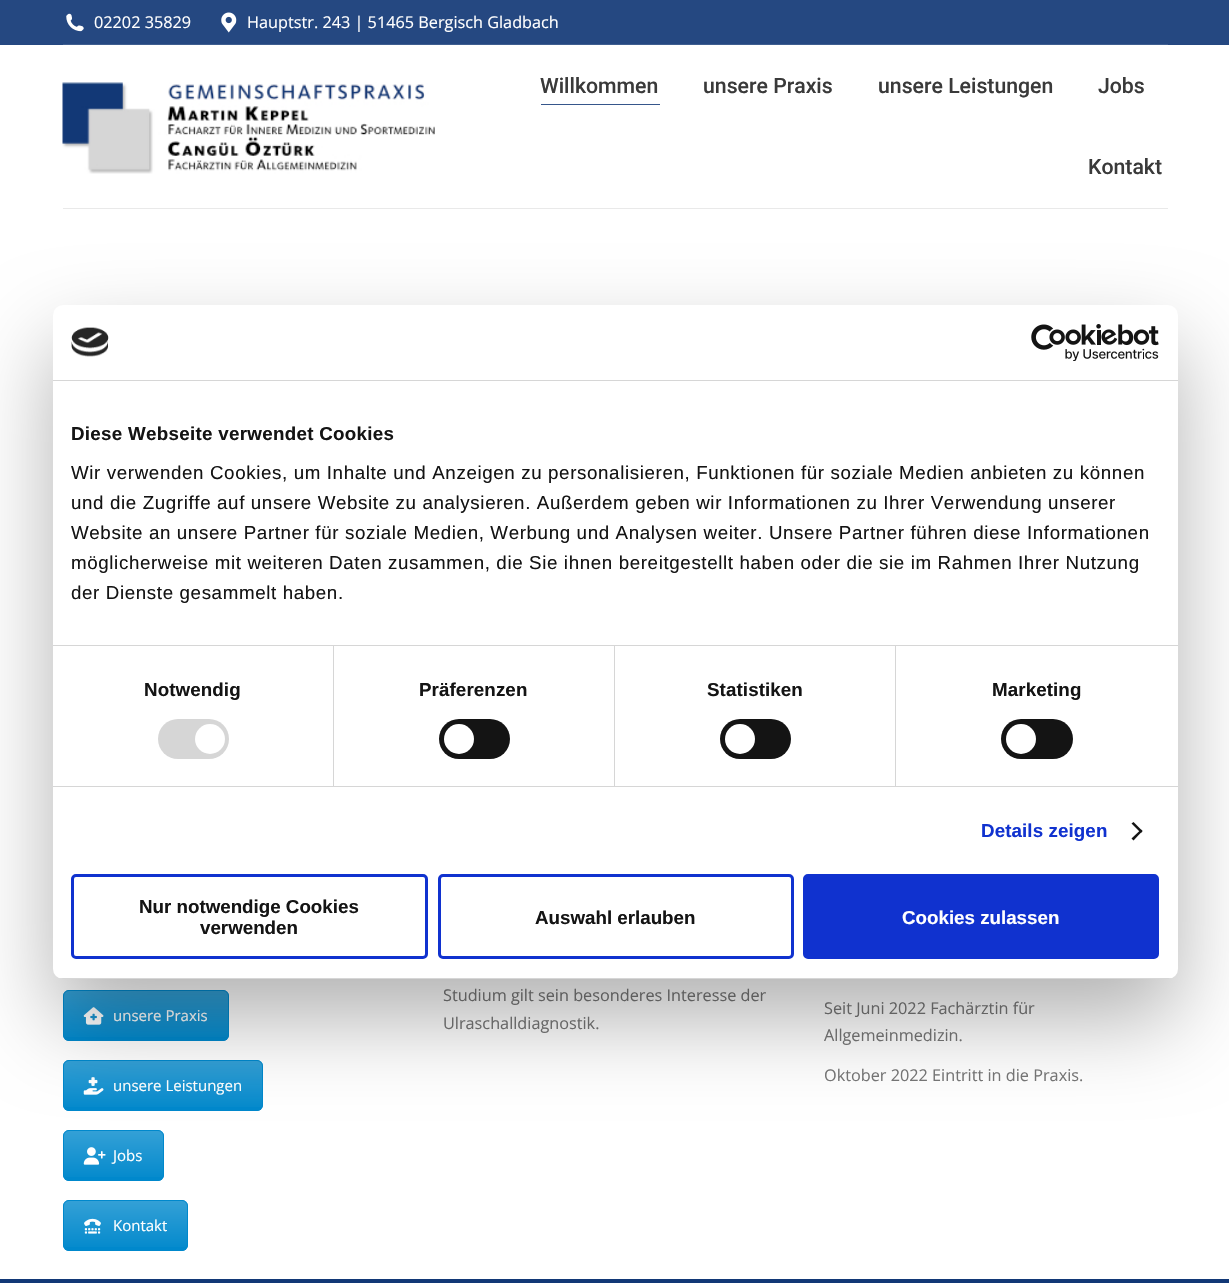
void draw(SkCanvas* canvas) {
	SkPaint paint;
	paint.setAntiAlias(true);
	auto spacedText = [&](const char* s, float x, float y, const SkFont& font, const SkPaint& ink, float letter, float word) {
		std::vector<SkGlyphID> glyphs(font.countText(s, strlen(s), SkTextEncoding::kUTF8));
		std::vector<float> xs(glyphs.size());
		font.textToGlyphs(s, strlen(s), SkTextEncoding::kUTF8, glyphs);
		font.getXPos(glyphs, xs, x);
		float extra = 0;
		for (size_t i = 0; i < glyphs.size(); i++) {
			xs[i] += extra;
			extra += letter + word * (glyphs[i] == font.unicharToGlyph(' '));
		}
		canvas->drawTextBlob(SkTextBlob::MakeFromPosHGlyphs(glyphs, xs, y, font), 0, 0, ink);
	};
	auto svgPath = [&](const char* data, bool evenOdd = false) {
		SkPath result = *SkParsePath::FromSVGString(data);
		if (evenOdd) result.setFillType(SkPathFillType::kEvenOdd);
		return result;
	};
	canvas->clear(0xffffffff);
	paint.setColor(0xff254881);
	canvas->drawRect(SkRect::MakeXYWH(0, 0, 1229, 45), paint);
	canvas->drawImageRect(SkImages::DeferredFromEncodedData(SkData::MakeFromFileName("img1.png")), SkRect::MakeXYWH(66, 13, 18, 19), SkSamplingOptions());
	SkFont f1(fontMgr->matchFamilyStyle("Open Sans", SkFontStyle::Normal()), 16.25);
	f1.setSubpixel(true);
	paint.setColor(0xffffffff);
	canvas->drawString("02202 35829", 94, 28, f1, paint);
	canvas->drawImageRect(SkImages::DeferredFromEncodedData(SkData::MakeFromFileName("img2.png")), SkRect::MakeXYWH(221, 12, 16, 21), SkSamplingOptions());
	canvas->drawString("Hauptstr. 243 | 51465 Bergisch Gladbach", 247, 28, f1, paint);
	paint.setColor(0xff3f5e90);
	canvas->drawRect(SkRect::MakeXYWH(63, 44, 1105, 1), paint);
	canvas->drawImageRect(SkImages::DeferredFromEncodedData(SkData::MakeFromFileName("img3.png")), SkRect::MakeXYWH(62, 82, 373, 92), SkSamplingOptions());
	SkFont f2(fontMgr->matchFamilyStyle("Roboto", SkFontStyle(500, SkFontStyle::kNormal_Width, SkFontStyle::kUpright_Slant)), 21.25);
	f2.setSubpixel(true);
	paint.setColor(0xff3a3a3a);
	canvas->drawString("Willkommen", 540, 93, f2, paint);
	paint.setColor(0xff36568b);
	canvas->drawRect(SkRect::MakeXYWH(541, 104, 119, 1), paint);
	paint.setColor(0xff3a3a3a);
	canvas->drawString("unsere Praxis", 703, 93, f2, paint);
	canvas->drawString("unsere Leistungen", 878, 93, f2, paint);
	canvas->drawString("Jobs", 1098, 93, f2, paint);
	canvas->drawString("Kontakt", 1088, 174, f2, paint);
	paint.setColor(0xffe9e9e9);
	canvas->drawRect(SkRect::MakeXYWH(63, 208, 1105, 1), paint);
	paint.setColor(0xff0088cc);
	canvas->drawRoundRect(SkRect::MakeXYWH(63, 990, 166, 51), 6, 6, paint);
	canvas->save();
	canvas->clipPath(svgPath("M69 990H223C226.5 990 229 992.5 229 996V1035C229 1038.5 226.5 1041 223 1041H69C65.5 1041 63 1038.5 63 1035V996C63 992.5 65.5 990 69 990Z"), true);
	{
		const SkColor colors[] = {0x33ffffff, 0x03ffffff};
		const float stops[] = {0, 1};
		const SkPoint ends[] = {{146, 991}, {146, 1040}};
		paint.setShader(SkGradientShader::MakeLinear(ends, colors, stops, 2, SkTileMode::kClamp));
		paint.setAlpha(255);
	}
	canvas->drawRect(SkRect::MakeXYWH(63, 991, 166, 46), paint);
	canvas->restore();
	paint.setStroke(true);
	paint.setStrokeWidth(1);
	paint.setShader(nullptr);
	paint.setColor(0xff0088cc);
	canvas->drawRoundRect(SkRect::MakeXYWH(63.5, 990.5, 165, 50), 5.5, 5.5, paint);
	canvas->drawImageRect(SkImages::DeferredFromEncodedData(SkData::MakeFromFileName("img4.png")), SkRect::MakeXYWH(83, 1007, 21, 18), SkSamplingOptions());
	SkFont f3(fontMgr->matchFamilyStyle("Open Sans", SkFontStyle::Normal()), 15);
	f3.setSubpixel(true);
	paint.setStroke(false);
	paint.setColor(0xffffffff);
	canvas->drawString("unsere Praxis", 113, 1021, f3, paint);
	paint.setColor(0xff0088cc);
	canvas->drawRoundRect(SkRect::MakeXYWH(63, 1060, 200, 51), 6, 6, paint);
	canvas->save();
	canvas->clipPath(svgPath("M69 1060H257C260.5 1060 263 1062.5 263 1066V1105C263 1108.5 260.5 1111 257 1111H69C65.5 1111 63 1108.5 63 1105V1066C63 1062.5 65.5 1060 69 1060Z"), true);
	{
		const SkColor colors[] = {0x33ffffff, 0x03ffffff};
		const float stops[] = {0, 1};
		const SkPoint ends[] = {{163, 1061}, {163, 1110}};
		paint.setShader(SkGradientShader::MakeLinear(ends, colors, stops, 2, SkTileMode::kClamp));
		paint.setAlpha(255);
	}
	canvas->drawRect(SkRect::MakeXYWH(63, 1061, 200, 46), paint);
	canvas->restore();
	paint.setStroke(true);
	paint.setShader(nullptr);
	paint.setColor(0xff0088cc);
	canvas->drawRoundRect(SkRect::MakeXYWH(63.5, 1060.5, 199, 50), 5.5, 5.5, paint);
	canvas->drawImageRect(SkImages::DeferredFromEncodedData(SkData::MakeFromFileName("img5.png")), SkRect::MakeXYWH(83, 1077, 21, 18), SkSamplingOptions());
	paint.setStroke(false);
	paint.setColor(0xffffffff);
	canvas->drawString("unsere Leistungen", 113, 1091, f3, paint);
	paint.setColor(0xff0088cc);
	canvas->drawRoundRect(SkRect::MakeXYWH(63, 1130, 101, 51), 6, 6, paint);
	canvas->save();
	canvas->clipPath(svgPath("M69 1130H158C161.5 1130 164 1132.5 164 1136V1175C164 1178.5 161.5 1181 158 1181H69C65.5 1181 63 1178.5 63 1175V1136C63 1132.5 65.5 1130 69 1130Z"), true);
	{
		const SkColor colors[] = {0x33ffffff, 0x03ffffff};
		const float stops[] = {0, 1};
		const SkPoint ends[] = {{113, 1131}, {113, 1180}};
		paint.setShader(SkGradientShader::MakeLinear(ends, colors, stops, 2, SkTileMode::kClamp));
		paint.setAlpha(255);
	}
	canvas->drawRect(SkRect::MakeXYWH(63, 1131, 101, 46), paint);
	canvas->restore();
	paint.setStroke(true);
	paint.setShader(nullptr);
	paint.setColor(0xff0088cc);
	canvas->drawRoundRect(SkRect::MakeXYWH(63.5, 1130.5, 100, 50), 5.5, 5.5, paint);
	canvas->drawImageRect(SkImages::DeferredFromEncodedData(SkData::MakeFromFileName("img6.png")), SkRect::MakeXYWH(83, 1147, 23, 18), SkSamplingOptions());
	paint.setStroke(false);
	paint.setColor(0xffffffff);
	canvas->drawString("Jobs", 113, 1161, f3, paint);
	paint.setColor(0xff0088cc);
	canvas->drawRoundRect(SkRect::MakeXYWH(63, 1200, 125, 51), 6, 6, paint);
	canvas->save();
	canvas->clipPath(svgPath("M69 1200H182C185.5 1200 188 1202.5 188 1206V1245C188 1248.5 185.5 1251 182 1251H69C65.5 1251 63 1248.5 63 1245V1206C63 1202.5 65.5 1200 69 1200Z"), true);
	{
		const SkColor colors[] = {0x33ffffff, 0x03ffffff};
		const float stops[] = {0, 1};
		const SkPoint ends[] = {{125, 1201}, {125, 1250}};
		paint.setShader(SkGradientShader::MakeLinear(ends, colors, stops, 2, SkTileMode::kClamp));
		paint.setAlpha(255);
	}
	canvas->drawRect(SkRect::MakeXYWH(63, 1201, 125, 46), paint);
	canvas->restore();
	paint.setStroke(true);
	paint.setShader(nullptr);
	paint.setColor(0xff0088cc);
	canvas->drawRoundRect(SkRect::MakeXYWH(63.5, 1200.5, 124, 50), 5.5, 5.5, paint);
	canvas->drawImageRect(SkImages::DeferredFromEncodedData(SkData::MakeFromFileName("img7.png")), SkRect::MakeXYWH(84, 1218, 17, 16), SkSamplingOptions());
	paint.setStroke(false);
	paint.setColor(0xffffffff);
	canvas->drawString("Kontakt", 113, 1231, f3, paint);
	paint.setColor(0xff777777);
	canvas->drawString("Studium gilt sein besonderes Interesse der", 443, 1001, f1, paint);
	canvas->drawString("Ulraschalldiagnostik.", 443, 1029, f1, paint);
	canvas->drawString("Seit Juni 2022 Fachärztin für", 824, 1014, f1, paint);
	canvas->drawString("Allgemeinmedizin.", 824, 1041, f1, paint);
	canvas->drawString("Oktober 2022 Eintritt in die Praxis.", 824, 1081, f1, paint);
	paint.setColor(0xff123876);
	canvas->drawRect(SkRect::MakeXYWH(0, 1279, 1229, 4), paint);
	paint.setColor(0x4d000000);
	paint.setMaskFilter(SkMaskFilter::MakeBlur(kNormal_SkBlurStyle, 42.5));
	canvas->drawRoundRect(SkRect::MakeXYWH(53, 345, 1125, 674), 10, 10, paint);
	paint.setMaskFilter(nullptr);
	paint.setColor(0xffffffff);
	canvas->drawRoundRect(SkRect::MakeXYWH(53, 305, 1125, 674), 10, 10, paint);
	paint.setColor(0xffd6d6d6);
	canvas->drawRect(SkRect::MakeXYWH(53, 380, 1125, 1), paint);
	canvas->drawImageRect(SkImages::DeferredFromEncodedData(SkData::MakeFromFileName("img8.png")), SkRect::MakeXYWH(71, 327, 38, 30), SkSamplingOptions());
	canvas->drawImageRect(SkImages::DeferredFromEncodedData(SkData::MakeFromFileName("img9.png")), SkRect::MakeXYWH(1031, 324, 128, 37), SkSamplingOptions());
	canvas->drawRect(SkRect::MakeXYWH(53, 645, 1125, 1), paint);
	SkFont f4(fontMgr->matchFamilyStyle("Liberation Sans", SkFontStyle::Bold()), 18.75);
	f4.setSubpixel(true);
	paint.setColor(0xff141414);
	spacedText("Diese Webseite verwendet Cookies", 71, 440, f4, paint, 0.3, 0);
	SkFont f5(fontMgr->matchFamilyStyle("Liberation Sans", SkFontStyle::Normal()), 18.75);
	f5.setSubpixel(true);
	spacedText("Wir verwenden Cookies, um Inhalte und Anzeigen zu personalisieren, Funktionen für soziale Medien anbieten zu können", 71, 479, f5, paint, 0.62, 0);
	spacedText("und die Zugriffe auf unsere Website zu analysieren. Außerdem geben wir Informationen zu Ihrer Verwendung unserer", 71, 509, f5, paint, 0.62, 0);
	spacedText("Website an unsere Partner für soziale Medien, Werbung und Analysen weiter. Unsere Partner führen diese Informationen", 71, 539, f5, paint, 0.62, 0);
	spacedText("möglicherweise mit weiteren Daten zusammen, die Sie ihnen bereitgestellt haben oder die sie im Rahmen Ihrer Nutzung", 71, 569, f5, paint, 0.62, 0);
	spacedText("der Dienste gesammelt haben.", 71, 599, f5, paint, 0.62, 0);
	paint.setColor(0xffd6d6d6);
	canvas->drawRect(SkRect::MakeXYWH(53, 786, 1125, 1), paint);
	canvas->drawRect(SkRect::MakeXYWH(333, 646, 1, 140), paint);
	paint.setColor(0xff141414);
	spacedText("Notwendig", 144, 696, f4, paint, 0.1, 0);
	paint.setColor(0xffd6d6d6);
	canvas->drawRoundRect(SkRect::MakeXYWH(158, 719, 71, 40), 20, 20, paint);
	paint.setColor(0xffffffff);
	canvas->drawCircle(210, 739, 15, paint);
	paint.setColor(0xffd6d6d6);
	canvas->drawRect(SkRect::MakeXYWH(614, 646, 1, 140), paint);
	paint.setColor(0xff141414);
	spacedText("Präferenzen", 419, 696, f4, paint, 0.1, 0);
	canvas->drawRoundRect(SkRect::MakeXYWH(439, 719, 71, 40), 20, 20, paint);
	paint.setColor(0xffffffff);
	canvas->drawCircle(459, 739, 15, paint);
	paint.setColor(0xffd6d6d6);
	canvas->drawRect(SkRect::MakeXYWH(895, 646, 1, 140), paint);
	paint.setColor(0xff141414);
	spacedText("Statistiken", 707, 696, f4, paint, 0.1, 0);
	canvas->drawRoundRect(SkRect::MakeXYWH(720, 719, 71, 40), 20, 20, paint);
	paint.setColor(0xffffffff);
	canvas->drawCircle(740, 739, 15, paint);
	paint.setColor(0xff141414);
	spacedText("Marketing", 992, 696, f4, paint, 0.1, 0);
	canvas->drawRoundRect(SkRect::MakeXYWH(1001, 719, 72, 40), 20, 20, paint);
	paint.setColor(0xffffffff);
	canvas->drawCircle(1021, 739, 15, paint);
	paint.setColor(0xff1032cf);
	spacedText("Details zeigen", 981, 837, f4, paint, 0.1, 0);
	paint.setColor(0xff141414);
	canvas->drawPath(svgPath("M1133.5 822L1142.5 831L1141 833L1131.5 823.5Z"), paint);
	canvas->drawPath(svgPath("M1141 829.5L1142.5 831L1133.5 840.5L1131.5 838.5Z"), paint);
	canvas->save();
	canvas->clipPath(svgPath("M63 305H1168C1173.5 305 1178 309.5 1178 315V969C1178 974.5 1173.5 979 1168 979H63C57.5 979 53 974.5 53 969V315C53 309.5 57.5 305 63 305Z"), true);
	paint.setColor(0xffd6d6d6);
	canvas->drawRect(SkRect::MakeXYWH(53, 978, 1125, 1), paint);
	canvas->restore();
	paint.setStroke(true);
	paint.setStrokeWidth(3);
	paint.setColor(0xff1032cf);
	canvas->drawRoundRect(SkRect::MakeXYWH(72.5, 875.5, 354, 82), 3.5, 3.5, paint);
	paint.setStroke(false);
	paint.setColor(0xff141414);
	canvas->drawString("Nur notwendige Cookies", 139, 913, f4, paint);
	canvas->drawString("verwenden", 200, 934, f4, paint);
	paint.setStroke(true);
	paint.setColor(0xff1032cf);
	canvas->drawRoundRect(SkRect::MakeXYWH(439.5, 875.5, 353, 82), 3.5, 3.5, paint);
	paint.setStroke(false);
	paint.setColor(0xff141414);
	canvas->drawString("Auswahl erlauben", 535, 924, f4, paint);
	paint.setColor(0xff1032cf);
	canvas->drawRoundRect(SkRect::MakeXYWH(804.5, 875.5, 353, 82), 3.5, 3.5, paint);
	paint.setStroke(true);
	canvas->drawRoundRect(SkRect::MakeXYWH(804.5, 875.5, 353, 82), 3.5, 3.5, paint);
	paint.setStroke(false);
	paint.setColor(0xffffffff);
	canvas->drawString("Cookies zulassen", 902, 924, f4, paint);
}
